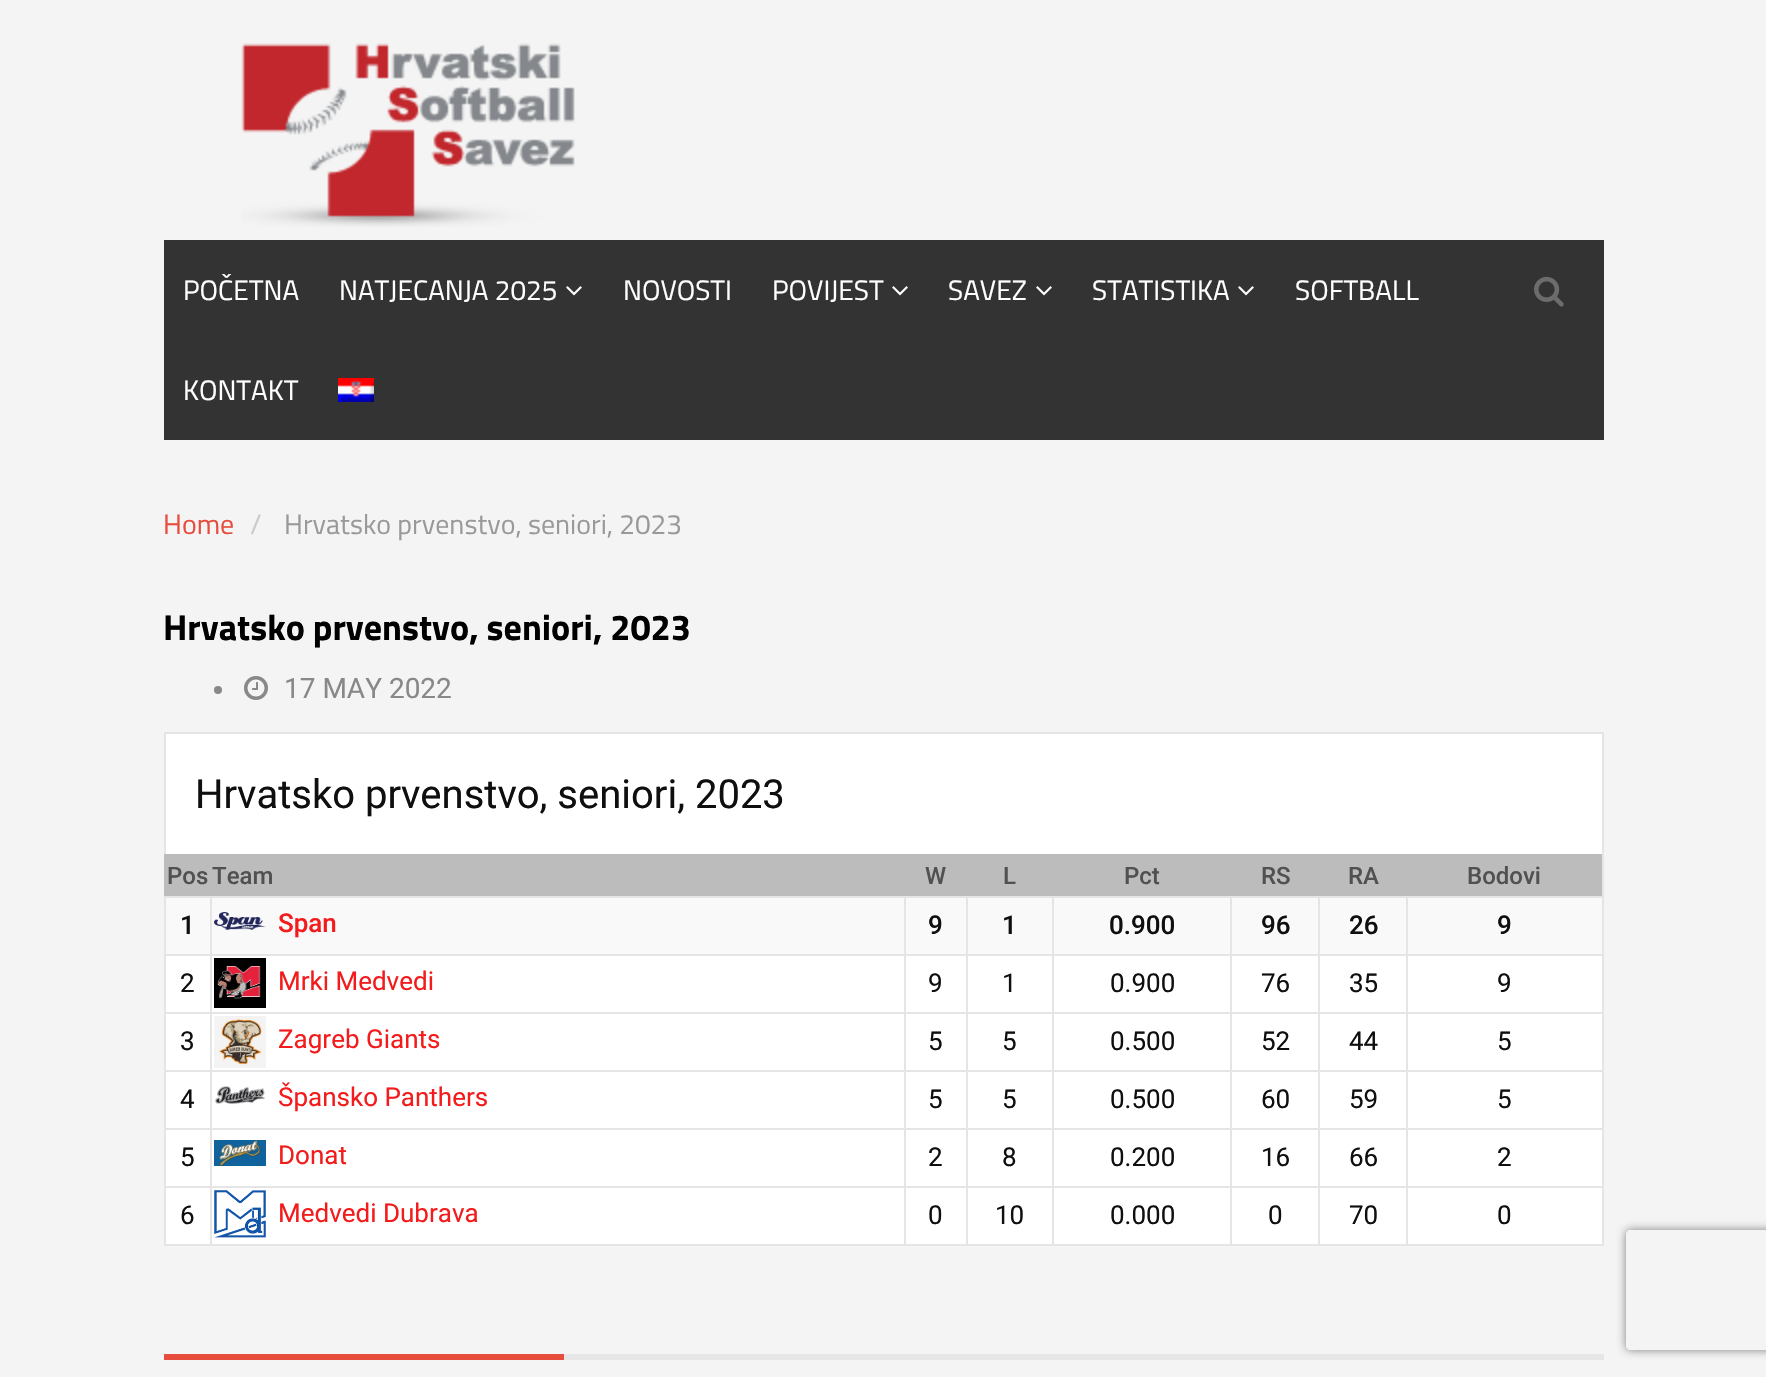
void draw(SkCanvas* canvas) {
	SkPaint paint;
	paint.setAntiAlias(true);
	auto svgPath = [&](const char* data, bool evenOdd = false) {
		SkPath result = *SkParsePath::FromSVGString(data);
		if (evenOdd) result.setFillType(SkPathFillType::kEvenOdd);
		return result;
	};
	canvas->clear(0xfff4f4f4);
	canvas->drawImageRect(SkImages::DeferredFromEncodedData(SkData::MakeFromFileName("img1.png")), SkRect::MakeXYWH(241, 43, 334, 184), SkSamplingOptions());
	paint.setColor(0xff333333);
	canvas->drawRect(SkRect::MakeXYWH(164, 240, 1440, 200), paint);
	SkFont f1(fontMgr->matchFamilyStyle("Titillium Web", SkFontStyle::Normal()), 28);
	f1.setSubpixel(true);
	paint.setColor(0xffffffff);
	canvas->drawString("POČETNA", 183, 300, f1, paint);
	canvas->drawString("NATJECANJA 2025", 339, 300, f1, paint);
	canvas->drawImageRect(SkImages::DeferredFromEncodedData(SkData::MakeFromFileName("img2.png")), SkRect::MakeXYWH(566, 286, 16, 10), SkSamplingOptions());
	canvas->drawString("NOVOSTI", 623, 300, f1, paint);
	canvas->drawString("POVIJEST", 772, 300, f1, paint);
	canvas->drawImageRect(SkImages::DeferredFromEncodedData(SkData::MakeFromFileName("img2.png")), SkRect::MakeXYWH(892, 286, 16, 10), SkSamplingOptions());
	canvas->drawString("SAVEZ", 948, 300, f1, paint);
	canvas->drawImageRect(SkImages::DeferredFromEncodedData(SkData::MakeFromFileName("img2.png")), SkRect::MakeXYWH(1036, 286, 16, 10), SkSamplingOptions());
	canvas->drawString("STATISTIKA", 1092, 300, f1, paint);
	canvas->drawImageRect(SkImages::DeferredFromEncodedData(SkData::MakeFromFileName("img2.png")), SkRect::MakeXYWH(1238, 286, 16, 10), SkSamplingOptions());
	canvas->drawString("SOFTBALL", 1295, 300, f1, paint);
	canvas->drawString("KONTAKT", 183, 400, f1, paint);
	canvas->drawImageRect(SkImages::DeferredFromEncodedData(SkData::MakeFromFileName("img3.png")), SkRect::MakeXYWH(338, 378, 36, 24), SkSamplingOptions());
	canvas->drawImageRect(SkImages::DeferredFromEncodedData(SkData::MakeFromFileName("img4.png")), SkRect::MakeXYWH(1534, 276, 30, 31), SkSamplingOptions());
	paint.setColor(0xffe74c3c);
	canvas->drawString("Home", 163, 534, f1, paint);
	paint.setColor(0xffcccccc);
	canvas->drawString("/", 250, 534, f1, paint);
	paint.setColor(0xff999999);
	canvas->drawString("Hrvatsko prvenstvo, seniori, 2023", 284, 534, f1, paint);
	SkFont f2(fontMgr->matchFamilyStyle("Titillium Web", SkFontStyle::Bold()), 36);
	f2.setSubpixel(true);
	paint.setColor(0xff000000);
	canvas->drawString("Hrvatsko prvenstvo, seniori, 2023", 163, 640, f2, paint);
	paint.setColor(0xff888888);
	canvas->drawCircle(218, 690, 4, paint);
	canvas->drawImageRect(SkImages::DeferredFromEncodedData(SkData::MakeFromFileName("img5.png")), SkRect::MakeXYWH(244, 676, 24, 24), SkSamplingOptions());
	SkFont f3(fontMgr->matchFamilyStyle("Roboto", SkFontStyle::Normal()), 28);
	f3.setSubpixel(true);
	canvas->drawString("17 MAY 2022", 284, 698, f3, paint);
	paint.setColor(0xffffffff);
	canvas->drawRect(SkRect::MakeXYWH(166, 734, 1436, 120), paint);
	paint.setColor(0xffe5e5e5);
	canvas->drawRect(SkRect::MakeXYWH(164, 732, 1440, 2), paint);
	canvas->drawRect(SkRect::MakeXYWH(1602, 732, 2, 514), paint);
	canvas->drawRect(SkRect::MakeXYWH(164, 732, 2, 122), paint);
	SkFont f4(fontMgr->matchFamilyStyle("Roboto", SkFontStyle::Normal()), 40);
	f4.setSubpixel(true);
	paint.setColor(0xff0f0f0f);
	canvas->drawString("Hrvatsko prvenstvo, seniori, 2023", 195, 808, f4, paint);
	paint.setColor(0xffffffff);
	canvas->drawRect(SkRect::MakeXYWH(166, 956, 1436, 288), paint);
	paint.setColor(0xffe5e5e5);
	canvas->drawRect(SkRect::MakeXYWH(164, 1244, 1440, 2), paint);
	canvas->drawRect(SkRect::MakeXYWH(164, 898, 2, 348), paint);
	paint.setColor(0xffbcbcbc);
	canvas->drawRect(SkRect::MakeXYWH(164, 854, 1438, 42), paint);
	SkFont f5(fontMgr->matchFamilyStyle("Roboto", SkFontStyle(500, SkFontStyle::kNormal_Width, SkFontStyle::kUpright_Slant)), 24);
	f5.setSubpixel(true);
	paint.setColor(0xff515151);
	canvas->drawString("Pos", 167, 884, f5, paint);
	canvas->drawString("Team", 212, 884, f5, paint);
	canvas->drawString("W", 925, 884, f5, paint);
	canvas->drawString("L", 1003, 884, f5, paint);
	canvas->drawString("Pct", 1124, 884, f5, paint);
	canvas->drawString("RS", 1261, 884, f5, paint);
	canvas->drawString("RA", 1348, 884, f5, paint);
	canvas->drawString("Bodovi", 1467, 884, f5, paint);
	paint.setColor(0xfff9f9f9);
	canvas->drawRect(SkRect::MakeXYWH(166, 898, 44, 56), paint);
	paint.setColor(0xffe5e5e5);
	canvas->drawRect(SkRect::MakeXYWH(1406, 896, 198, 2), paint);
	canvas->drawRect(SkRect::MakeXYWH(1406, 954, 198, 2), paint);
	canvas->drawRect(SkRect::MakeXYWH(1406, 1012, 198, 2), paint);
	canvas->drawRect(SkRect::MakeXYWH(1406, 1070, 198, 2), paint);
	canvas->drawRect(SkRect::MakeXYWH(1406, 1128, 198, 2), paint);
	canvas->drawRect(SkRect::MakeXYWH(1406, 1186, 198, 2), paint);
	canvas->drawRect(SkRect::MakeXYWH(1406, 1186, 2, 60), paint);
	canvas->drawRect(SkRect::MakeXYWH(1318, 1186, 90, 2), paint);
	canvas->drawRect(SkRect::MakeXYWH(1406, 1128, 2, 60), paint);
	canvas->drawRect(SkRect::MakeXYWH(1318, 1128, 90, 2), paint);
	canvas->drawRect(SkRect::MakeXYWH(1406, 1070, 2, 60), paint);
	canvas->drawRect(SkRect::MakeXYWH(1318, 1070, 90, 2), paint);
	canvas->drawRect(SkRect::MakeXYWH(1406, 1012, 2, 60), paint);
	canvas->drawRect(SkRect::MakeXYWH(1318, 1012, 90, 2), paint);
	canvas->drawRect(SkRect::MakeXYWH(1406, 954, 2, 60), paint);
	canvas->drawRect(SkRect::MakeXYWH(1318, 954, 90, 2), paint);
	canvas->drawRect(SkRect::MakeXYWH(1406, 896, 2, 60), paint);
	canvas->drawRect(SkRect::MakeXYWH(1318, 896, 90, 2), paint);
	canvas->drawRect(SkRect::MakeXYWH(1318, 1186, 2, 60), paint);
	canvas->drawRect(SkRect::MakeXYWH(1230, 1186, 90, 2), paint);
	canvas->drawRect(SkRect::MakeXYWH(1318, 1128, 2, 60), paint);
	canvas->drawRect(SkRect::MakeXYWH(1230, 1128, 90, 2), paint);
	canvas->drawRect(SkRect::MakeXYWH(1318, 1070, 2, 60), paint);
	canvas->drawRect(SkRect::MakeXYWH(1230, 1070, 90, 2), paint);
	canvas->drawRect(SkRect::MakeXYWH(1318, 1012, 2, 60), paint);
	canvas->drawRect(SkRect::MakeXYWH(1230, 1012, 90, 2), paint);
	canvas->drawRect(SkRect::MakeXYWH(1318, 954, 2, 60), paint);
	canvas->drawRect(SkRect::MakeXYWH(1230, 954, 90, 2), paint);
	canvas->drawRect(SkRect::MakeXYWH(1318, 896, 2, 60), paint);
	canvas->drawRect(SkRect::MakeXYWH(1230, 896, 90, 2), paint);
	canvas->drawRect(SkRect::MakeXYWH(1230, 1186, 2, 60), paint);
	canvas->drawRect(SkRect::MakeXYWH(1052, 1186, 180, 2), paint);
	canvas->drawRect(SkRect::MakeXYWH(1230, 1128, 2, 60), paint);
	canvas->drawRect(SkRect::MakeXYWH(1052, 1128, 180, 2), paint);
	canvas->drawRect(SkRect::MakeXYWH(1230, 1070, 2, 60), paint);
	canvas->drawRect(SkRect::MakeXYWH(1052, 1070, 180, 2), paint);
	canvas->drawRect(SkRect::MakeXYWH(1230, 1012, 2, 60), paint);
	canvas->drawRect(SkRect::MakeXYWH(1052, 1012, 180, 2), paint);
	canvas->drawRect(SkRect::MakeXYWH(1230, 954, 2, 60), paint);
	canvas->drawRect(SkRect::MakeXYWH(1052, 954, 180, 2), paint);
	canvas->drawRect(SkRect::MakeXYWH(1230, 896, 2, 60), paint);
	canvas->drawRect(SkRect::MakeXYWH(1052, 896, 180, 2), paint);
	canvas->drawRect(SkRect::MakeXYWH(1052, 1186, 2, 60), paint);
	canvas->drawRect(SkRect::MakeXYWH(966, 1186, 88, 2), paint);
	canvas->drawRect(SkRect::MakeXYWH(1052, 1128, 2, 60), paint);
	canvas->drawRect(SkRect::MakeXYWH(966, 1128, 88, 2), paint);
	canvas->drawRect(SkRect::MakeXYWH(1052, 1070, 2, 60), paint);
	canvas->drawRect(SkRect::MakeXYWH(966, 1070, 88, 2), paint);
	canvas->drawRect(SkRect::MakeXYWH(1052, 1012, 2, 60), paint);
	canvas->drawRect(SkRect::MakeXYWH(966, 1012, 88, 2), paint);
	canvas->drawRect(SkRect::MakeXYWH(1052, 954, 2, 60), paint);
	canvas->drawRect(SkRect::MakeXYWH(966, 954, 88, 2), paint);
	canvas->drawRect(SkRect::MakeXYWH(1052, 896, 2, 60), paint);
	canvas->drawRect(SkRect::MakeXYWH(966, 896, 88, 2), paint);
	canvas->drawRect(SkRect::MakeXYWH(966, 1186, 2, 60), paint);
	canvas->drawRect(SkRect::MakeXYWH(904, 1186, 64, 2), paint);
	canvas->drawRect(SkRect::MakeXYWH(966, 1128, 2, 60), paint);
	canvas->drawRect(SkRect::MakeXYWH(904, 1128, 64, 2), paint);
	canvas->drawRect(SkRect::MakeXYWH(966, 1070, 2, 60), paint);
	canvas->drawRect(SkRect::MakeXYWH(904, 1070, 64, 2), paint);
	canvas->drawRect(SkRect::MakeXYWH(966, 1012, 2, 60), paint);
	canvas->drawRect(SkRect::MakeXYWH(904, 1012, 64, 2), paint);
	canvas->drawRect(SkRect::MakeXYWH(966, 954, 2, 60), paint);
	canvas->drawRect(SkRect::MakeXYWH(904, 954, 64, 2), paint);
	canvas->drawRect(SkRect::MakeXYWH(966, 896, 2, 60), paint);
	canvas->drawRect(SkRect::MakeXYWH(904, 896, 64, 2), paint);
	canvas->drawRect(SkRect::MakeXYWH(904, 1186, 2, 60), paint);
	canvas->drawRect(SkRect::MakeXYWH(210, 1186, 696, 2), paint);
	canvas->drawRect(SkRect::MakeXYWH(904, 1128, 2, 60), paint);
	canvas->drawRect(SkRect::MakeXYWH(210, 1128, 696, 2), paint);
	canvas->drawRect(SkRect::MakeXYWH(904, 1070, 2, 60), paint);
	canvas->drawRect(SkRect::MakeXYWH(210, 1070, 696, 2), paint);
	canvas->drawRect(SkRect::MakeXYWH(904, 1012, 2, 60), paint);
	canvas->drawRect(SkRect::MakeXYWH(210, 1012, 696, 2), paint);
	canvas->drawRect(SkRect::MakeXYWH(904, 954, 2, 60), paint);
	canvas->drawRect(SkRect::MakeXYWH(210, 954, 696, 2), paint);
	canvas->drawRect(SkRect::MakeXYWH(904, 896, 2, 60), paint);
	canvas->drawRect(SkRect::MakeXYWH(210, 896, 696, 2), paint);
	canvas->drawRect(SkRect::MakeXYWH(210, 1186, 2, 60), paint);
	canvas->drawRect(SkRect::MakeXYWH(164, 1186, 48, 2), paint);
	canvas->drawRect(SkRect::MakeXYWH(210, 1128, 2, 60), paint);
	canvas->drawRect(SkRect::MakeXYWH(164, 1128, 48, 2), paint);
	canvas->drawRect(SkRect::MakeXYWH(210, 1070, 2, 60), paint);
	canvas->drawRect(SkRect::MakeXYWH(164, 1070, 48, 2), paint);
	canvas->drawRect(SkRect::MakeXYWH(210, 1012, 2, 60), paint);
	canvas->drawRect(SkRect::MakeXYWH(164, 1012, 48, 2), paint);
	canvas->drawRect(SkRect::MakeXYWH(210, 954, 2, 60), paint);
	canvas->drawRect(SkRect::MakeXYWH(164, 954, 48, 2), paint);
	canvas->drawRect(SkRect::MakeXYWH(210, 896, 2, 60), paint);
	canvas->drawRect(SkRect::MakeXYWH(164, 896, 48, 2), paint);
	SkFont f6(fontMgr->matchFamilyStyle("Roboto", SkFontStyle(500, SkFontStyle::kNormal_Width, SkFontStyle::kUpright_Slant)), 26);
	f6.setSubpixel(true);
	paint.setColor(0xff0f0f0f);
	canvas->drawString("1", 180, 934, f6, paint);
	paint.setColor(0xfff9f9f9);
	canvas->drawRect(SkRect::MakeXYWH(212, 898, 692, 56), paint);
	canvas->drawImageRect(SkImages::DeferredFromEncodedData(SkData::MakeFromFileName("img6.png")), SkRect::MakeXYWH(214, 912, 52, 18), SkSamplingOptions());
	paint.setColor(0xfff31b1b);
	canvas->drawString("Span", 278, 932, f6, paint);
	paint.setColor(0xfff9f9f9);
	canvas->drawRect(SkRect::MakeXYWH(906, 898, 60, 56), paint);
	paint.setColor(0xff0f0f0f);
	canvas->drawString("9", 928, 934, f6, paint);
	paint.setColor(0xfff9f9f9);
	canvas->drawRect(SkRect::MakeXYWH(968, 898, 84, 56), paint);
	paint.setColor(0xff0f0f0f);
	canvas->drawString("1", 1002, 934, f6, paint);
	paint.setColor(0xfff9f9f9);
	canvas->drawRect(SkRect::MakeXYWH(1054, 898, 176, 56), paint);
	paint.setColor(0xff0f0f0f);
	canvas->drawString("0.900", 1109, 934, f6, paint);
	paint.setColor(0xfff9f9f9);
	canvas->drawRect(SkRect::MakeXYWH(1232, 898, 86, 56), paint);
	paint.setColor(0xff0f0f0f);
	canvas->drawString("96", 1261, 934, f6, paint);
	paint.setColor(0xfff9f9f9);
	canvas->drawRect(SkRect::MakeXYWH(1320, 898, 86, 56), paint);
	paint.setColor(0xff0f0f0f);
	canvas->drawString("26", 1349, 934, f6, paint);
	paint.setColor(0xfff9f9f9);
	canvas->drawRect(SkRect::MakeXYWH(1408, 898, 194, 56), paint);
	paint.setColor(0xff0f0f0f);
	canvas->drawString("9", 1497, 934, f6, paint);
	SkFont f7(fontMgr->matchFamilyStyle("Roboto", SkFontStyle::Normal()), 26);
	f7.setSubpixel(true);
	canvas->drawString("2", 180, 992, f7, paint);
	canvas->drawImageRect(SkImages::DeferredFromEncodedData(SkData::MakeFromFileName("img7.png")), SkRect::MakeXYWH(214, 958, 52, 50), SkSamplingOptions());
	paint.setColor(0xfff31b1b);
	canvas->drawString("Mrki Medvedi", 278, 990, f7, paint);
	paint.setColor(0xff0f0f0f);
	canvas->drawString("9", 928, 992, f7, paint);
	canvas->drawString("1", 1002, 992, f7, paint);
	canvas->drawString("0.900", 1110, 992, f7, paint);
	canvas->drawString("76", 1261, 992, f7, paint);
	canvas->drawString("35", 1349, 992, f7, paint);
	canvas->drawString("9", 1497, 992, f7, paint);
	canvas->drawString("3", 180, 1050, f7, paint);
	canvas->drawImageRect(SkImages::DeferredFromEncodedData(SkData::MakeFromFileName("img8.png")), SkRect::MakeXYWH(214, 1016, 52, 52), SkSamplingOptions());
	paint.setColor(0xfff31b1b);
	canvas->drawString("Zagreb Giants", 278, 1048, f7, paint);
	paint.setColor(0xff0f0f0f);
	canvas->drawString("5", 928, 1050, f7, paint);
	canvas->drawString("5", 1002, 1050, f7, paint);
	canvas->drawString("0.500", 1110, 1050, f7, paint);
	canvas->drawString("52", 1261, 1050, f7, paint);
	canvas->drawString("44", 1349, 1050, f7, paint);
	canvas->drawString("5", 1497, 1050, f7, paint);
	canvas->drawString("4", 180, 1108, f7, paint);
	canvas->drawImageRect(SkImages::DeferredFromEncodedData(SkData::MakeFromFileName("img9.png")), SkRect::MakeXYWH(215, 1086, 50, 19), SkSamplingOptions());
	paint.setColor(0xfff31b1b);
	canvas->drawString("Špansko Panthers", 278, 1106, f7, paint);
	paint.setColor(0xff0f0f0f);
	canvas->drawString("5", 928, 1108, f7, paint);
	canvas->drawString("5", 1002, 1108, f7, paint);
	canvas->drawString("0.500", 1110, 1108, f7, paint);
	canvas->drawString("60", 1261, 1108, f7, paint);
	canvas->drawString("59", 1349, 1108, f7, paint);
	canvas->drawString("5", 1497, 1108, f7, paint);
	canvas->drawString("5", 180, 1166, f7, paint);
	canvas->drawImageRect(SkImages::DeferredFromEncodedData(SkData::MakeFromFileName("img10.png")), SkRect::MakeXYWH(214, 1140, 52, 26), SkSamplingOptions());
	paint.setColor(0xfff31b1b);
	canvas->drawString("Donat", 278, 1164, f7, paint);
	paint.setColor(0xff0f0f0f);
	canvas->drawString("2", 928, 1166, f7, paint);
	canvas->drawString("8", 1002, 1166, f7, paint);
	canvas->drawString("0.200", 1110, 1166, f7, paint);
	canvas->drawString("16", 1261, 1166, f7, paint);
	canvas->drawString("66", 1349, 1166, f7, paint);
	canvas->drawString("2", 1497, 1166, f7, paint);
	canvas->drawString("6", 180, 1224, f7, paint);
	canvas->drawImageRect(SkImages::DeferredFromEncodedData(SkData::MakeFromFileName("img11.png")), SkRect::MakeXYWH(214, 1190, 52, 48), SkSamplingOptions());
	paint.setColor(0xfff31b1b);
	canvas->drawString("Medvedi Dubrava", 278, 1222, f7, paint);
	paint.setColor(0xff0f0f0f);
	canvas->drawString("0", 928, 1224, f7, paint);
	canvas->drawString("10", 995, 1224, f7, paint);
	canvas->drawString("0.000", 1110, 1224, f7, paint);
	canvas->drawString("0", 1268, 1224, f7, paint);
	canvas->drawString("70", 1349, 1224, f7, paint);
	canvas->drawString("0", 1497, 1224, f7, paint);
	paint.setColor(0xffe6e6e6);
	canvas->drawRect(SkRect::MakeXYWH(564, 1354, 1040, 6), paint);
	paint.setColor(0xffe74c3c);
	canvas->drawRect(SkRect::MakeXYWH(164, 1354, 400, 6), paint);
	canvas->save();
	canvas->clipPath(svgPath("M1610 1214H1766V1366H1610ZM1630 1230H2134C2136 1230 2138 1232 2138 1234V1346C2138 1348 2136 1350 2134 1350H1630C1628 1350 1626 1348 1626 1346V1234C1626 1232 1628 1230 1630 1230Z", true), true);
	paint.setColor(0xff808080);
	paint.setMaskFilter(SkMaskFilter::MakeBlur(kNormal_SkBlurStyle, 5));
	canvas->drawRoundRect(SkRect::MakeXYWH(1626, 1230, 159, 120), 4, 4, paint);
	paint.setMaskFilter(nullptr);
	canvas->restore();
}
